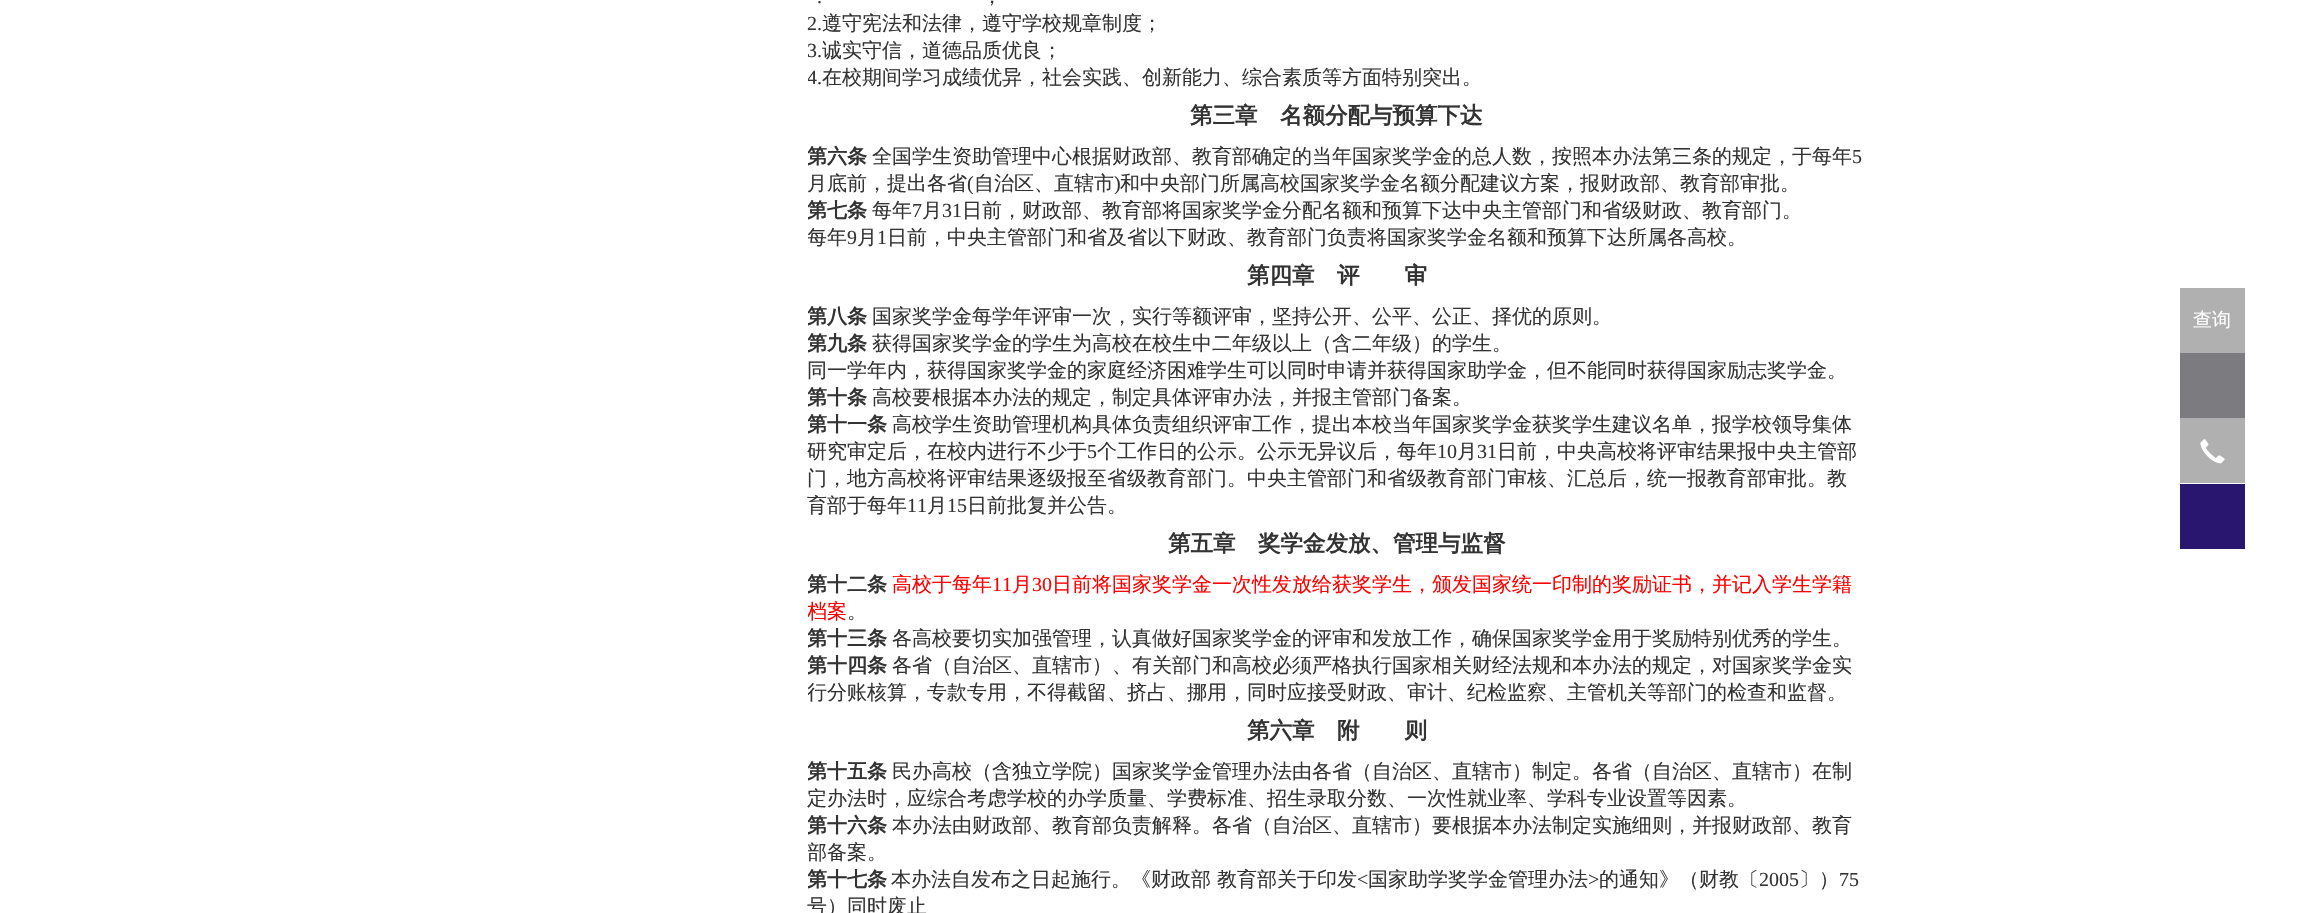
void draw(SkCanvas* canvas) {
	SkPaint paint;
	paint.setAntiAlias(true);
	canvas->clear(0xffffffff);
	SkFont f1(fontMgr->matchFamilyStyle("Liberation Serif", SkFontStyle::Normal()), 20);
	f1.setSubpixel(true);
	paint.setColor(0xff333333);
	canvas->drawString(".", 817, 3, f1, paint);
	SkFont f2(fontMgr->matchFamilyStyle("WenQuanYi Zen Hei", SkFontStyle(500, SkFontStyle::kNormal_Width, SkFontStyle::kUpright_Slant)), 20);
	f2.setSubpixel(true);
	canvas->drawString("，", 982, 3, f2, paint);
	canvas->drawString("2.", 807, 30, f1, paint);
	canvas->drawString("遵守宪法和法律，遵守学校规章制度；", 822, 30, f2, paint);
	canvas->save();
	canvas->clipRect(SkRect::MakeXYWH(808, 0, 1058, 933));
	canvas->drawString("3.", 807, 57, f1, paint);
	canvas->restore();
	canvas->drawString("诚实守信，道德品质优良；", 822, 57, f2, paint);
	canvas->save();
	canvas->clipRect(SkRect::MakeXYWH(808, 0, 1058, 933));
	canvas->drawString("4.", 807, 84, f1, paint);
	canvas->restore();
	canvas->drawString("在校期间学习成绩优异，社会实践、创新能力、综合素质等方面特别突出。", 822, 84, f2, paint);
	SkFont f3(fontMgr->matchFamilyStyle("WenQuanYi Zen Hei", SkFontStyle::Bold()), 22.5);
	f3.setSubpixel(true);
	canvas->drawString("第三章　名额分配与预算下达", 1190, 123, f3, paint);
	canvas->save();
	canvas->clipRect(SkRect::MakeXYWH(808, 0, 1058, 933));
	SkFont f4(fontMgr->matchFamilyStyle("WenQuanYi Zen Hei", SkFontStyle::Bold()), 20);
	f4.setSubpixel(true);
	canvas->drawString("第六条", 807, 163, f4, paint);
	canvas->restore();
	canvas->drawString("全国学生资助管理中心根据财政部、教育部确定的当年国家奖学金的总人数，按照本办法第三条的规定，于每年", 872, 163, f2, paint);
	canvas->drawString("5", 1852, 163, f1, paint);
	canvas->drawString("月底前，提出各省", 807, 190, f2, paint);
	canvas->drawString("(", 967, 190, f1, paint);
	canvas->drawString("自治区、直辖市", 974, 190, f2, paint);
	canvas->drawString(")", 1114, 190, f1, paint);
	canvas->drawString("和中央部门所属高校国家奖学金名额分配建议方案，报财政部、教育部审批。", 1120, 190, f2, paint);
	canvas->save();
	canvas->clipRect(SkRect::MakeXYWH(808, 0, 1058, 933));
	canvas->drawString("第七条", 807, 217, f4, paint);
	canvas->restore();
	canvas->drawString("每年", 872, 217, f2, paint);
	canvas->drawString("7", 912, 217, f1, paint);
	canvas->drawString("月", 922, 217, f2, paint);
	canvas->drawString("31", 942, 217, f1, paint);
	canvas->drawString("日前，财政部、教育部将国家奖学金分配名额和预算下达中央主管部门和省级财政、教育部门。", 962, 217, f2, paint);
	canvas->save();
	canvas->clipRect(SkRect::MakeXYWH(808, 0, 1058, 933));
	canvas->drawString("每年", 807, 244, f2, paint);
	canvas->restore();
	canvas->drawString("9", 847, 244, f1, paint);
	canvas->drawString("月", 857, 244, f2, paint);
	canvas->drawString("1", 877, 244, f1, paint);
	canvas->drawString("日前，中央主管部门和省及省以下财政、教育部门负责将国家奖学金名额和预算下达所属各高校。", 887, 244, f2, paint);
	canvas->drawString("第四章　评　　审", 1247, 283, f3, paint);
	canvas->save();
	canvas->clipRect(SkRect::MakeXYWH(808, 0, 1058, 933));
	canvas->drawString("第八条", 807, 323, f4, paint);
	canvas->restore();
	canvas->drawString("国家奖学金每学年评审一次，实行等额评审，坚持公开、公平、公正、择优的原则。", 872, 323, f2, paint);
	canvas->save();
	canvas->clipRect(SkRect::MakeXYWH(808, 0, 1058, 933));
	canvas->drawString("第九条", 807, 350, f4, paint);
	canvas->restore();
	canvas->drawString("获得国家奖学金的学生为高校在校生中二年级以上（含二年级）的学生。", 872, 350, f2, paint);
	canvas->drawString("同一学年内，获得国家奖学金的家庭经济困难学生可以同时申请并获得国家助学金，但不能同时获得国家励志奖学金。", 807, 377, f2, paint);
	canvas->save();
	canvas->clipRect(SkRect::MakeXYWH(808, 0, 1058, 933));
	canvas->drawString("第十条", 807, 404, f4, paint);
	canvas->restore();
	canvas->drawString("高校要根据本办法的规定，制定具体评审办法，并报主管部门备案。", 872, 404, f2, paint);
	canvas->save();
	canvas->clipRect(SkRect::MakeXYWH(808, 0, 1058, 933));
	canvas->drawString("第十一条", 807, 431, f4, paint);
	canvas->restore();
	canvas->drawString("高校学生资助管理机构具体负责组织评审工作，提出本校当年国家奖学金获奖学生建议名单，报学校领导集体", 892, 431, f2, paint);
	canvas->drawString("研究审定后，在校内进行不少于", 807, 458, f2, paint);
	canvas->drawString("5", 1087, 458, f1, paint);
	canvas->drawString("个工作日的公示。公示无异议后，每年", 1097, 458, f2, paint);
	canvas->drawString("10", 1437, 458, f1, paint);
	canvas->drawString("月", 1457, 458, f2, paint);
	canvas->drawString("31", 1477, 458, f1, paint);
	canvas->drawString("日前，中央高校将评审结果报中央主管部", 1497, 458, f2, paint);
	canvas->drawString("门，地方高校将评审结果逐级报至省级教育部门。中央主管部门和省级教育部门审核、汇总后，统一报教育部审批。教", 807, 485, f2, paint);
	canvas->drawString("育部于每年", 807, 512, f2, paint);
	canvas->drawString("11", 907, 512, f1, paint);
	canvas->drawString("月", 927, 512, f2, paint);
	canvas->drawString("15", 947, 512, f1, paint);
	canvas->drawString("日前批复并公告。", 967, 512, f2, paint);
	canvas->drawString("第五章　奖学金发放、管理与监督", 1168, 551, f3, paint);
	canvas->save();
	canvas->clipRect(SkRect::MakeXYWH(808, 0, 1058, 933));
	canvas->drawString("第十二条", 807, 591, f4, paint);
	canvas->restore();
	paint.setColor(0xffff0000);
	canvas->drawString("高校于每年", 892, 591, f2, paint);
	canvas->drawString("11", 992, 591, f1, paint);
	canvas->drawString("月", 1012, 591, f2, paint);
	canvas->drawString("30", 1032, 591, f1, paint);
	canvas->drawString("日前将国家奖学金一次性发放给获奖学生，颁发国家统一印制的奖励证书，并记入学生学籍", 1052, 591, f2, paint);
	canvas->save();
	canvas->clipRect(SkRect::MakeXYWH(808, 0, 1058, 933));
	canvas->drawString("档案", 807, 618, f2, paint);
	canvas->restore();
	paint.setColor(0xff333333);
	canvas->drawString("。", 847, 618, f2, paint);
	canvas->save();
	canvas->clipRect(SkRect::MakeXYWH(808, 0, 1058, 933));
	canvas->drawString("第十三条", 807, 645, f4, paint);
	canvas->restore();
	canvas->drawString("各高校要切实加强管理，认真做好国家奖学金的评审和发放工作，确保国家奖学金用于奖励特别优秀的学生。", 892, 645, f2, paint);
	canvas->save();
	canvas->clipRect(SkRect::MakeXYWH(808, 0, 1058, 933));
	canvas->drawString("第十四条", 807, 672, f4, paint);
	canvas->restore();
	canvas->drawString("各省（自治区、直辖市）、有关部门和高校必须严格执行国家相关财经法规和本办法的规定，对国家奖学金实", 892, 672, f2, paint);
	canvas->save();
	canvas->clipRect(SkRect::MakeXYWH(808, 0, 1058, 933));
	canvas->drawString("行分账核算，专款专用，不得截留、挤占、挪用，同时应接受财政、审计、纪检监察、主管机关等部门的检查和监督。", 807, 699, f2, paint);
	canvas->restore();
	canvas->drawString("第六章　附　　则", 1247, 738, f3, paint);
	canvas->save();
	canvas->clipRect(SkRect::MakeXYWH(808, 0, 1058, 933));
	canvas->drawString("第十五条", 807, 778, f4, paint);
	canvas->restore();
	canvas->drawString("民办高校（含独立学院）国家奖学金管理办法由各省（自治区、直辖市）制定。各省（自治区、直辖市）在制", 892, 778, f2, paint);
	canvas->drawString("定办法时，应综合考虑学校的办学质量、学费标准、招生录取分数、一次性就业率、学科专业设置等因素。", 807, 805, f2, paint);
	canvas->save();
	canvas->clipRect(SkRect::MakeXYWH(808, 0, 1058, 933));
	canvas->drawString("第十六条", 807, 832, f4, paint);
	canvas->restore();
	canvas->drawString("本办法由财政部、教育部负责解释。各省（自治区、直辖市）要根据本办法制定实施细则，并报财政部、教育", 892, 832, f2, paint);
	canvas->save();
	canvas->clipRect(SkRect::MakeXYWH(808, 0, 1058, 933));
	canvas->drawString("部备案。", 807, 859, f2, paint);
	canvas->drawString("第十七条", 807, 886, f4, paint);
	canvas->restore();
	canvas->drawString("本办法自发布之日起施行。《财政部 教育部关于印发", 891, 886, f2, paint);
	canvas->drawString("<", 1357, 886, f1, paint);
	canvas->drawString("国家助学奖学金管理办法", 1368, 886, f2, paint);
	canvas->drawString(">", 1588, 886, f1, paint);
	canvas->drawString("的通知》（财教〔", 1599, 886, f2, paint);
	canvas->drawString("2005", 1759, 886, f1, paint);
	canvas->drawString("〕）", 1799, 886, f2, paint);
	canvas->drawString("75", 1839, 886, f1, paint);
	canvas->drawString("号）同时废止", 807, 913, f2, paint);
	paint.setColor(0xffb0b0b0);
	canvas->drawRect(SkRect::MakeXYWH(2180, 288, 65, 65), paint);
	SkFont f5(fontMgr->matchFamilyStyle("WenQuanYi Zen Hei", SkFontStyle(500, SkFontStyle::kNormal_Width, SkFontStyle::kUpright_Slant)), 19);
	f5.setSubpixel(true);
	paint.setColor(0xffffffff);
	canvas->drawString("查询", 2193, 326, f5, paint);
	paint.setColor(0xff7c7b7f);
	canvas->drawRect(SkRect::MakeXYWH(2180, 353, 65, 65), paint);
	paint.setColor(0xffb0b0b0);
	canvas->drawRect(SkRect::MakeXYWH(2180, 418, 65, 65), paint);
	canvas->drawImageRect(SkImages::DeferredFromEncodedData(SkData::MakeFromFileName("img1.png")), SkRect::MakeXYWH(2200, 439, 25, 25), SkSamplingOptions());
	paint.setColor(0xff28166f);
	canvas->drawRect(SkRect::MakeXYWH(2180, 484, 65, 65), paint);
}
